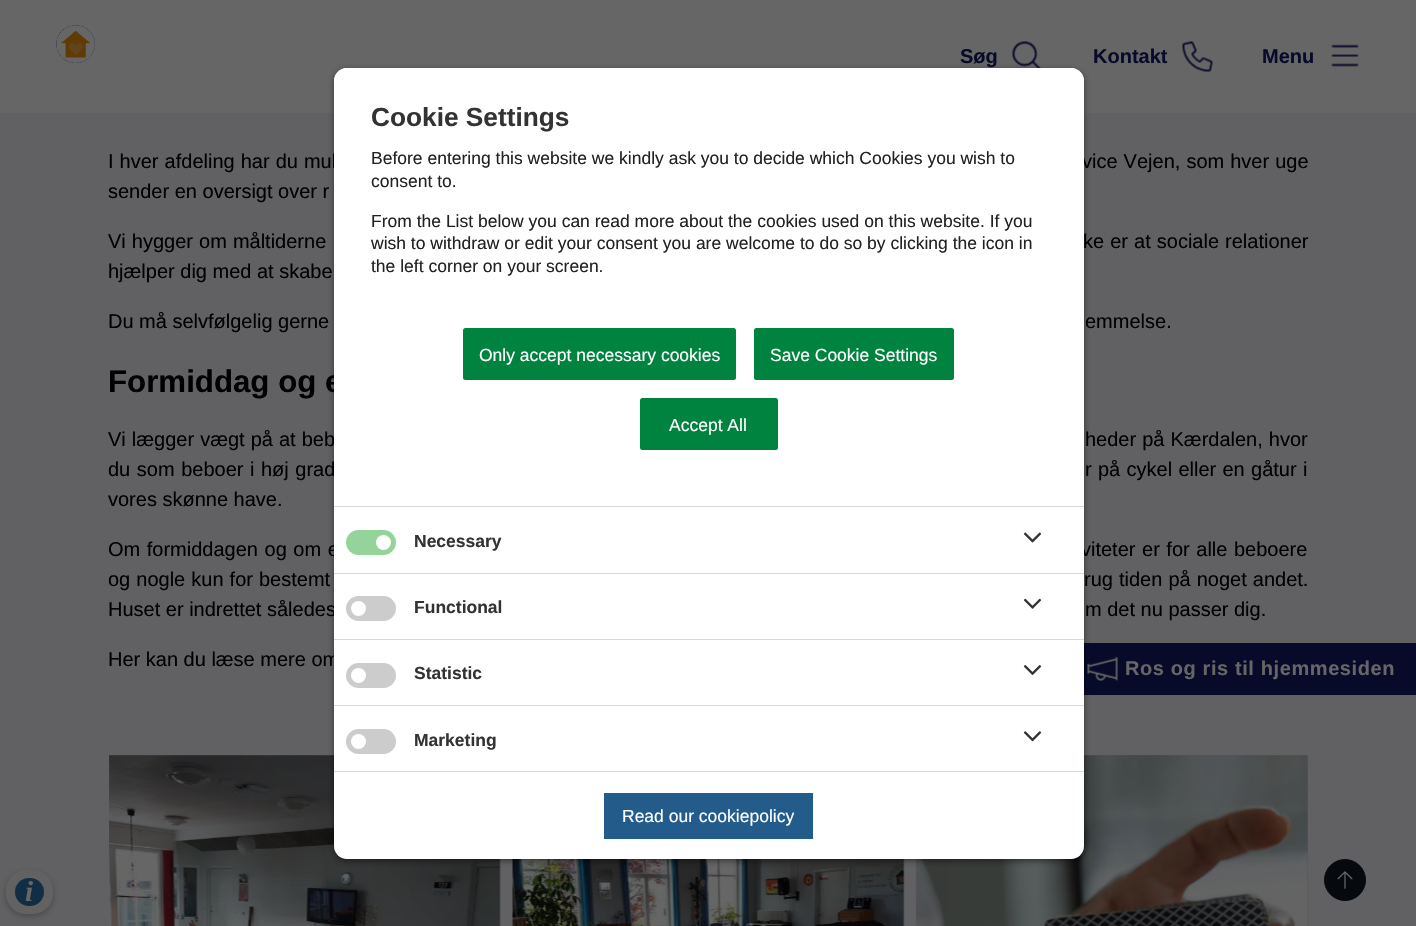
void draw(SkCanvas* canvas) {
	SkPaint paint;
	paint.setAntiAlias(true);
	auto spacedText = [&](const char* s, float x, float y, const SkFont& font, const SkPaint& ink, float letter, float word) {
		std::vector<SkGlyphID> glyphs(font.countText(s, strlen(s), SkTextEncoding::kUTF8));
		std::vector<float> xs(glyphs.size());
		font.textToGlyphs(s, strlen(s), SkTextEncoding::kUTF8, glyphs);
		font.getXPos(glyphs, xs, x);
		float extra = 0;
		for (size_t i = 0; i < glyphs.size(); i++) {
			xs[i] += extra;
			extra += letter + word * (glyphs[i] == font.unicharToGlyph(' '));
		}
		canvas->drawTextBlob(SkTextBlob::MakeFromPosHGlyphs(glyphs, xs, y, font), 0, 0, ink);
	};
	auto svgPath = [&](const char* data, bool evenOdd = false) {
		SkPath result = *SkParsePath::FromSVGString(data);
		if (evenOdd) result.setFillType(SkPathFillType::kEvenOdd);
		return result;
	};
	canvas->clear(0xff616163);
	paint.setColor(0xff666666);
	canvas->drawRect(SkRect::MakeXYWH(0, 0, 1416, 113), paint);
	canvas->drawImageRect(SkImages::DeferredFromEncodedData(SkData::MakeFromFileName("img1.png")), SkRect::MakeXYWH(56, 25, 39, 38), SkSamplingOptions());
	SkFont f1(fontMgr->matchFamilyStyle("Liberation Sans", SkFontStyle::Bold()), 20);
	f1.setSubpixel(true);
	paint.setColor(0xff080a2a);
	canvas->drawString("Søg", 960, 63, f1, paint);
	canvas->drawImageRect(SkImages::DeferredFromEncodedData(SkData::MakeFromFileName("img2.png")), SkRect::MakeXYWH(1012, 41, 29, 27), SkSamplingOptions());
	canvas->drawString("Kontakt", 1093, 63, f1, paint);
	canvas->drawImageRect(SkImages::DeferredFromEncodedData(SkData::MakeFromFileName("img3.png")), SkRect::MakeXYWH(1182, 41, 31, 31), SkSamplingOptions());
	canvas->drawString("Menu", 1262, 63, f1, paint);
	canvas->drawImageRect(SkImages::DeferredFromEncodedData(SkData::MakeFromFileName("img4.png")), SkRect::MakeXYWH(1331, 44, 28, 23), SkSamplingOptions());
	SkFont f2(fontMgr->matchFamilyStyle("Liberation Sans", SkFontStyle::Normal()), 20);
	f2.setSubpixel(true);
	paint.setColor(0xff000000);
	spacedText("I hver afdeling har du mul", 108, 168, f2, paint, 0, 0.5);
	spacedText("vice Vejen, som hver uge", 1082, 168, f2, paint, 0, 0.5);
	canvas->drawString("sender en oversigt over r", 108, 198, f2, paint);
	spacedText("Vi hygger om måltiderne", 108, 248, f2, paint, 0, 0.5);
	spacedText("ke er at sociale relationer", 1083, 248, f2, paint, 0, 0.5);
	canvas->drawString("hjælper dig med at skabe", 108, 278, f2, paint);
	canvas->drawString("Du må selvfølgelig gerne", 108, 328, f2, paint);
	canvas->drawString("emmelse.", 1085, 328, f2, paint);
	SkFont f3(fontMgr->matchFamilyStyle("Liberation Sans", SkFontStyle::Bold()), 31.25);
	f3.setSubpixel(true);
	canvas->drawString("Formiddag og e", 108, 392, f3, paint);
	spacedText("Vi lægger vægt på at beb", 108, 446, f2, paint, 0, 0.5);
	spacedText("heder på Kærdalen, hvor", 1085, 446, f2, paint, 0, 0.5);
	spacedText("du som beboer i høj grad", 108, 476, f2, paint, 0, 1);
	spacedText("r på cykel eller en gåtur i", 1085, 476, f2, paint, 0, 0.75);
	canvas->drawString("vores skønne have.", 108, 506, f2, paint);
	spacedText("Om formiddagen og om e", 108, 556, f2, paint, 0, 1);
	spacedText("viteter er for alle beboere", 1081, 556, f2, paint, 0, 1);
	spacedText("og nogle kun for bestemt", 108, 586, f2, paint, 0, 0.5);
	spacedText("rug tiden på noget andet.", 1084, 586, f2, paint, 0, 0.5);
	canvas->drawString("Huset er indrettet således", 108, 616, f2, paint);
	canvas->drawString("m det nu passer dig.", 1085, 616, f2, paint);
	canvas->drawString("Her kan du læse mere om", 108, 666, f2, paint);
	paint.setColor(0xff535353);
	canvas->drawRect(SkRect::MakeXYWH(109, 755, 391, 171), paint);
	canvas->drawImageRect(SkImages::DeferredFromEncodedData(SkData::MakeFromFileName("img5.png")), SkRect::MakeXYWH(109, 755, 392, 171), SkSamplingOptions());
	canvas->drawRect(SkRect::MakeXYWH(903, 859, 1, 67), paint);
	canvas->drawImageRect(SkImages::DeferredFromEncodedData(SkData::MakeFromFileName("img6.png")), SkRect::MakeXYWH(512, 859, 393, 67), SkSamplingOptions());
	canvas->drawRect(SkRect::MakeXYWH(916, 755, 392, 171), paint);
	canvas->drawImageRect(SkImages::DeferredFromEncodedData(SkData::MakeFromFileName("img7.png")), SkRect::MakeXYWH(915, 755, 393, 171), SkSamplingOptions());
	paint.setColor(0xff080a2a);
	canvas->drawRect(SkRect::MakeXYWH(1084, 644, 331, 50), paint);
	paint.setStroke(true);
	paint.setStrokeWidth(1);
	canvas->drawRect(SkRect::MakeXYWH(1066.5, 643.5, 349, 51), paint);
	canvas->drawImageRect(SkImages::DeferredFromEncodedData(SkData::MakeFromFileName("img8.png")), SkRect::MakeXYWH(1087, 656, 31, 25), SkSamplingOptions());
	paint.setStroke(false);
	paint.setColor(0xff666666);
	spacedText("Ros og ris til hjemmesiden", 1125, 675, f1, paint, 0.6, 0);
	paint.setColor(0xff060a0e);
	canvas->drawCircle(1345, 880, 20.5, paint);
	paint.setStroke(true);
	canvas->drawCircle(1345, 880, 20.5, paint);
	canvas->drawImageRect(SkImages::DeferredFromEncodedData(SkData::MakeFromFileName("img9.png")), SkRect::MakeXYWH(1337, 871, 16, 18), SkSamplingOptions());
	paint.setStroke(false);
	paint.setColor(0x75000000);
	paint.setMaskFilter(SkMaskFilter::MakeBlur(kNormal_SkBlurStyle, 3));
	canvas->drawRoundRect(SkRect::MakeXYWH(334, 70, 750, 791), 13, 13, paint);
	paint.setMaskFilter(nullptr);
	paint.setColor(0xffffffff);
	canvas->drawRoundRect(SkRect::MakeXYWH(334, 68, 750, 791), 13, 13, paint);
	canvas->drawPath(svgPath("M347 68H1071C1078 68 1084 74 1084 81V508H334V81C334 74 340 68 347 68Z"), paint);
	paint.setColor(0xffd8d8d8);
	canvas->drawRect(SkRect::MakeXYWH(334, 506, 750, 1), paint);
	SkFont f4(fontMgr->matchFamilyStyle("Liberation Sans", SkFontStyle::Bold()), 26.25);
	f4.setSubpixel(true);
	paint.setColor(0xff333333);
	canvas->drawString("Cookie Settings", 371, 126, f4, paint);
	SkFont f5(fontMgr->matchFamilyStyle("Liberation Sans", SkFontStyle::Normal()), 17.5);
	f5.setSubpixel(true);
	paint.setColor(0xff222222);
	canvas->drawString("Before entering this website we kindly ask you to decide which Cookies you wish to", 371, 164, f5, paint);
	canvas->drawString("consent to.", 371, 187, f5, paint);
	canvas->drawString("From the List below you can read more about the cookies used on this website. If you", 371, 227, f5, paint);
	canvas->drawString("wish to withdraw or edit your consent you are welcome to do so by clicking the icon in", 371, 249, f5, paint);
	canvas->drawString("the left corner on your screen.", 371, 272, f5, paint);
	paint.setColor(0xff00833e);
	canvas->drawRoundRect(SkRect::MakeXYWH(463, 328, 273, 52), 2.5, 2.5, paint);
	paint.setColor(0xffffffff);
	canvas->drawString("Only accept necessary cookies", 479, 361, f5, paint);
	paint.setColor(0xff00833e);
	canvas->drawRoundRect(SkRect::MakeXYWH(754, 328, 200, 52), 2.5, 2.5, paint);
	paint.setColor(0xffffffff);
	canvas->drawString("Save Cookie Settings", 770, 361, f5, paint);
	paint.setColor(0xff00833e);
	canvas->drawRoundRect(SkRect::MakeXYWH(640, 398, 138, 52), 2.5, 2.5, paint);
	paint.setColor(0xffffffff);
	canvas->drawString("Accept All", 669, 431, f5, paint);
	paint.setColor(0xffd8d8d8);
	canvas->drawRect(SkRect::MakeXYWH(334, 573, 750, 1), paint);
	paint.setColor(0xff94d49a);
	canvas->drawRoundRect(SkRect::MakeXYWH(346, 530, 50, 25), 12.5, 12.5, paint);
	paint.setColor(0xffffffff);
	canvas->drawCircle(383.5, 542.5, 7.5, paint);
	SkFont f6(fontMgr->matchFamilyStyle("Liberation Sans", SkFontStyle::Bold()), 17.5);
	f6.setSubpixel(true);
	paint.setColor(0xff333333);
	canvas->drawString("Necessary", 414, 547, f6, paint);
	canvas->drawImageRect(SkImages::DeferredFromEncodedData(SkData::MakeFromFileName("img10.png")), SkRect::MakeXYWH(1023, 532, 19, 11), SkSamplingOptions());
	paint.setColor(0xffd8d8d8);
	canvas->drawRect(SkRect::MakeXYWH(334, 639, 750, 1), paint);
	paint.setColor(0xffcccccc);
	canvas->drawRoundRect(SkRect::MakeXYWH(346, 596, 50, 25), 12.5, 12.5, paint);
	paint.setColor(0xffffffff);
	canvas->drawCircle(358.5, 608.5, 7.5, paint);
	paint.setColor(0xff333333);
	canvas->drawString("Functional", 414, 613, f6, paint);
	canvas->drawImageRect(SkImages::DeferredFromEncodedData(SkData::MakeFromFileName("img11.png")), SkRect::MakeXYWH(1023, 598, 19, 11), SkSamplingOptions());
	paint.setColor(0xffd8d8d8);
	canvas->drawRect(SkRect::MakeXYWH(334, 705, 750, 1), paint);
	paint.setColor(0xffcccccc);
	canvas->drawRoundRect(SkRect::MakeXYWH(346, 663, 50, 25), 12.5, 12.5, paint);
	paint.setColor(0xffffffff);
	canvas->drawCircle(358.5, 675.5, 7.5, paint);
	paint.setColor(0xff333333);
	canvas->drawString("Statistic", 414, 679, f6, paint);
	canvas->drawImageRect(SkImages::DeferredFromEncodedData(SkData::MakeFromFileName("img12.png")), SkRect::MakeXYWH(1023, 665, 19, 10), SkSamplingOptions());
	paint.setColor(0xffd8d8d8);
	canvas->drawRect(SkRect::MakeXYWH(334, 771, 750, 1), paint);
	paint.setColor(0xffcccccc);
	canvas->drawRoundRect(SkRect::MakeXYWH(346, 729, 50, 25), 12.5, 12.5, paint);
	paint.setColor(0xffffffff);
	canvas->drawCircle(358.5, 741.5, 7.5, paint);
	paint.setColor(0xff333333);
	canvas->drawString("Marketing", 414, 746, f6, paint);
	canvas->drawImageRect(SkImages::DeferredFromEncodedData(SkData::MakeFromFileName("img13.png")), SkRect::MakeXYWH(1023, 731, 19, 11), SkSamplingOptions());
	paint.setColor(0xff235c8b);
	canvas->drawRect(SkRect::MakeXYWH(604, 793, 209, 46), paint);
	paint.setColor(0xffffffff);
	canvas->drawString("Read our cookiepolicy", 622, 822, f5, paint);
	paint.setColor(0x42000000);
	paint.setMaskFilter(SkMaskFilter::MakeBlur(kNormal_SkBlurStyle, 3));
	canvas->drawRoundRect(SkRect::MakeXYWH(6, 873, 47, 43), 20, 20, paint);
	paint.setMaskFilter(nullptr);
	paint.setColor(0xff626262);
	canvas->drawRoundRect(SkRect::MakeXYWH(6.5, 870.5, 46, 43), 19.5, 19.5, paint);
	paint.setStroke(true);
	paint.setColor(0xff616161);
	canvas->drawRoundRect(SkRect::MakeXYWH(6.5, 870.5, 46, 43), 19.5, 19.5, paint);
	paint.setStroke(false);
	paint.setColor(0xff122e44);
	canvas->drawRoundRect(SkRect::MakeXYWH(15, 878, 29, 28), 14, 14, paint);
	SkFont f7(fontMgr->matchFamilyStyle("Liberation Serif", SkFontStyle::BoldItalic()), 29);
	f7.setSubpixel(true);
	paint.setColor(0xff666666);
	canvas->drawString("i", 25, 901, f7, paint);
}
